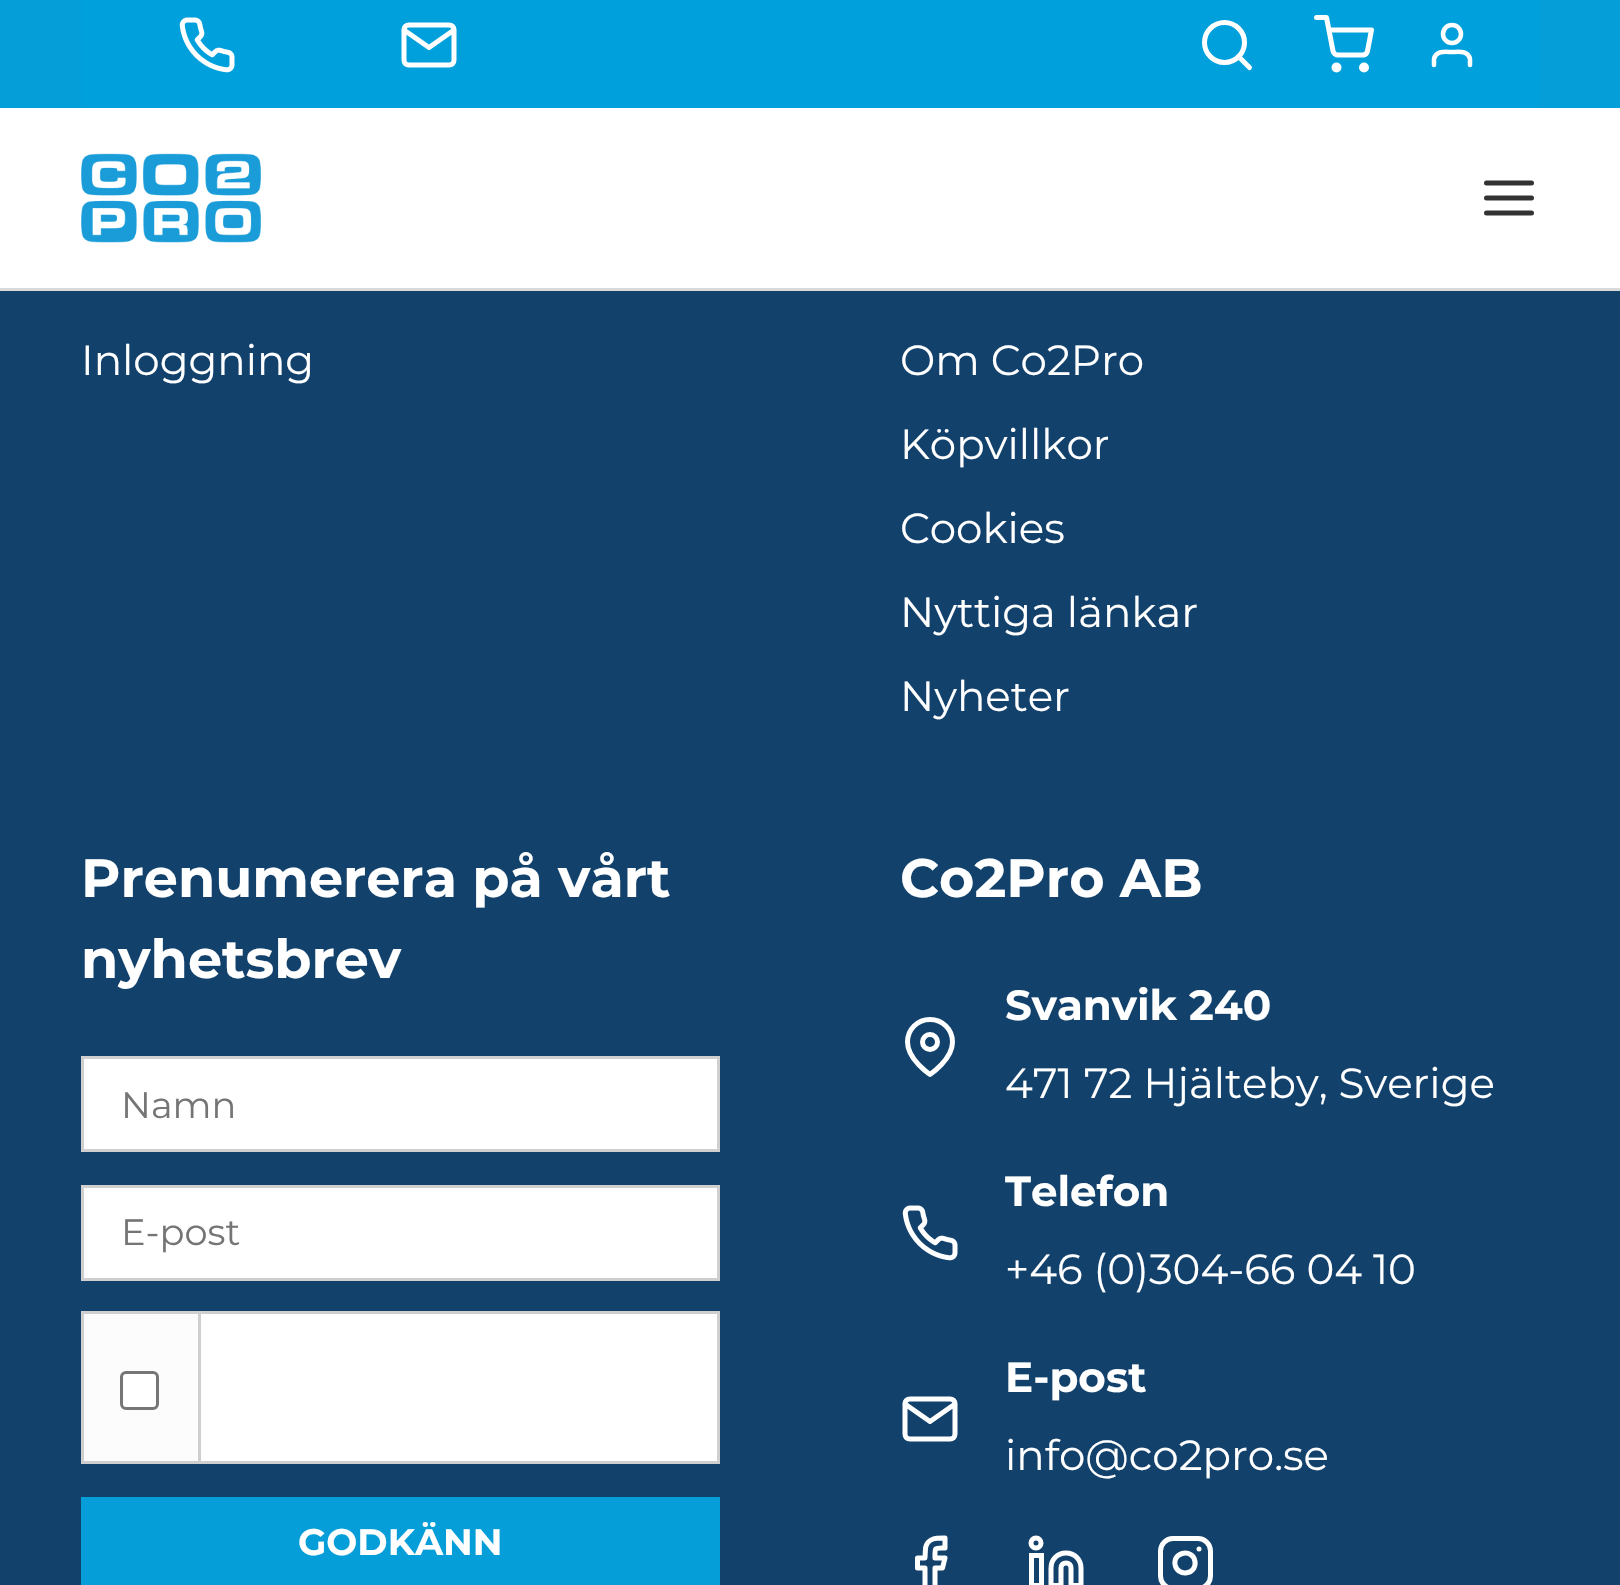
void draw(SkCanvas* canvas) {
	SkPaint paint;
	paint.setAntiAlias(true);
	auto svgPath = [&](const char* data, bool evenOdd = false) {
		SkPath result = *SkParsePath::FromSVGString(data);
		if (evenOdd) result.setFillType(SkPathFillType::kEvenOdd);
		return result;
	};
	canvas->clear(0xff12416c);
	paint.setColor(0xffffffff);
	canvas->drawRect(SkRect::MakeXYWH(0, 108, 1620, 180), paint);
	paint.setColor(0xffd9d9d9);
	canvas->drawRect(SkRect::MakeXYWH(0, 288, 1620, 3), paint);
	paint.setColor(0xff069ed9);
	canvas->drawRect(SkRect::MakeXYWH(0, 0, 1620, 108), paint);
	paint.setColor(0xff00a0dc);
	canvas->drawRect(SkRect::MakeXYWH(81, 0, 1458, 108), paint);
	canvas->drawImageRect(SkImages::DeferredFromEncodedData(SkData::MakeFromFileName("img1.png")), SkRect::MakeXYWH(179, 17, 56, 56), SkSamplingOptions());
	paint.setStroke(true);
	paint.setStrokeWidth(5);
	paint.setStrokeCap(SkPaint::kRound_Cap);
	paint.setStrokeJoin(SkPaint::kRound_Join);
	paint.setColor(0xffffffff);
	canvas->drawPath(svgPath("M409 25H449C452 25 454 27 454 30V60C454 63 452 65 449 65H409C406 65 404 63 404 60V30C404 27 406 25 409 25ZM454 30L429 47.5L404 30"), paint);
	paint.setStrokeCap(SkPaint::kButt_Cap);
	paint.setStrokeJoin(SkPaint::kMiter_Join);
	canvas->drawCircle(1224.5, 42.5, 20, paint);
	paint.setStrokeCap(SkPaint::kRound_Cap);
	paint.setStrokeJoin(SkPaint::kRound_Join);
	canvas->drawPath(svgPath("M1249.5 67.5L1238.5 56.5"), paint);
	paint.setStrokeCap(SkPaint::kButt_Cap);
	paint.setStrokeJoin(SkPaint::kMiter_Join);
	canvas->drawCircle(1336.5, 67.5, 2.5, paint);
	canvas->drawCircle(1364, 67.5, 2.5, paint);
	paint.setStrokeCap(SkPaint::kRound_Cap);
	paint.setStrokeJoin(SkPaint::kRound_Join);
	canvas->drawPath(svgPath("M1316.5 17.5H1326.5L1333 51C1333.5 53.5 1336 55 1338 55H1362.5C1365 55 1367 53.5 1367.5 51L1371.5 30H1329"), paint);
	paint.setStrokeWidth(4.5);
	paint.setStrokeCap(SkPaint::kButt_Cap);
	paint.setStrokeJoin(SkPaint::kMiter_Join);
	canvas->drawCircle(1452, 34, 9, paint);
	paint.setStrokeCap(SkPaint::kRound_Cap);
	paint.setStrokeJoin(SkPaint::kRound_Join);
	canvas->drawPath(svgPath("M1470 65V59C1468 50 1458.5 52 1452 52C1445.5 52 1436 50 1434 59V65"), paint);
	canvas->drawImageRect(SkImages::DeferredFromEncodedData(SkData::MakeFromFileName("img2.png")), SkRect::MakeXYWH(81, 153, 180, 90), SkSamplingOptions());
	paint.setStrokeWidth(5);
	paint.setColor(0xff333333);
	canvas->drawPath(svgPath("M1486.5 198H1531.5M1486.5 183H1531.5M1486.5 213H1531.5"), paint);
	SkFont f1(fontMgr->matchFamilyStyle("Montserrat", SkFontStyle::Normal()), 42);
	f1.setSubpixel(true);
	paint.setStroke(false);
	paint.setColor(0xffffffff);
	canvas->drawString("Inloggning", 81, 375, f1, paint);
	canvas->drawString("Om Co2Pro", 900, 375, f1, paint);
	canvas->drawString("Köpvillkor", 900, 459, f1, paint);
	canvas->drawString("Cookies", 900, 543, f1, paint);
	canvas->drawString("Nyttiga länkar", 900, 627, f1, paint);
	canvas->drawString("Nyheter", 900, 711, f1, paint);
	SkFont f2(fontMgr->matchFamilyStyle("Montserrat", SkFontStyle::Bold()), 54);
	f2.setSubpixel(true);
	canvas->drawString("Prenumerera på vårt", 81, 897, f2, paint);
	canvas->drawString("nyhetsbrev", 81, 978, f2, paint);
	canvas->drawRect(SkRect::MakeXYWH(82.5, 1057.5, 636, 93), paint);
	paint.setStroke(true);
	paint.setStrokeWidth(3);
	paint.setStrokeCap(SkPaint::kButt_Cap);
	paint.setStrokeJoin(SkPaint::kMiter_Join);
	paint.setColor(0xffcfcfcf);
	canvas->drawRect(SkRect::MakeXYWH(82.5, 1057.5, 636, 93), paint);
	SkFont f3(fontMgr->matchFamilyStyle("Montserrat", SkFontStyle::Normal()), 36.75);
	f3.setSubpixel(true);
	paint.setStroke(false);
	paint.setColor(0xff757575);
	canvas->drawString("Namn", 121, 1118, f3, paint);
	paint.setColor(0xffffffff);
	canvas->drawRect(SkRect::MakeXYWH(82.5, 1186.5, 636, 93), paint);
	paint.setStroke(true);
	paint.setColor(0xffcfcfcf);
	canvas->drawRect(SkRect::MakeXYWH(82.5, 1186.5, 636, 93), paint);
	paint.setStroke(false);
	paint.setColor(0xff757575);
	canvas->drawString("E-post", 121, 1245, f3, paint);
	paint.setColor(0xfffcfcfc);
	canvas->drawRect(SkRect::MakeXYWH(84, 1314, 114, 147), paint);
	paint.setColor(0xffcfcfcf);
	canvas->drawRect(SkRect::MakeXYWH(81, 1311, 117, 3), paint);
	canvas->drawRect(SkRect::MakeXYWH(81, 1461, 117, 3), paint);
	canvas->drawRect(SkRect::MakeXYWH(81, 1311, 3, 153), paint);
	paint.setColor(0xffffffff);
	canvas->drawRoundRect(SkRect::MakeXYWH(121.5, 1372.5, 36, 36), 4.5, 4.5, paint);
	paint.setStroke(true);
	paint.setColor(0xff767676);
	canvas->drawRoundRect(SkRect::MakeXYWH(121.5, 1372.5, 36, 36), 4.5, 4.5, paint);
	paint.setStroke(false);
	paint.setColor(0xffffffff);
	canvas->drawRect(SkRect::MakeXYWH(199.5, 1312.5, 519, 150), paint);
	paint.setStroke(true);
	paint.setColor(0xffcfcfcf);
	canvas->drawRect(SkRect::MakeXYWH(199.5, 1312.5, 519, 150), paint);
	paint.setStroke(false);
	paint.setColor(0xff069ed9);
	canvas->drawRect(SkRect::MakeXYWH(81, 1497, 639, 88), paint);
	SkFont f4(fontMgr->matchFamilyStyle("Montserrat", SkFontStyle::Bold()), 36.75);
	f4.setSubpixel(true);
	paint.setColor(0xffffffff);
	canvas->drawString("GODKÄNN", 298, 1555, f4, paint);
	canvas->drawString("Co2Pro AB", 900, 897, f2, paint);
	paint.setStroke(true);
	paint.setStrokeWidth(5);
	paint.setStrokeCap(SkPaint::kRound_Cap);
	paint.setStrokeJoin(SkPaint::kRound_Join);
	canvas->drawPath(svgPath("M952.5 1042C952.5 1059.5 930 1074.5 930 1074.5C930 1074.5 907.5 1059.5 907.5 1042C907.5 1029.5 917.5 1019.5 930 1019.5C942.5 1019.5 952.5 1029.5 952.5 1042Z"), paint);
	paint.setStrokeCap(SkPaint::kButt_Cap);
	paint.setStrokeJoin(SkPaint::kMiter_Join);
	canvas->drawCircle(930, 1042, 7.5, paint);
	SkFont f5(fontMgr->matchFamilyStyle("Montserrat", SkFontStyle::Bold()), 42);
	f5.setSubpixel(true);
	paint.setStroke(false);
	canvas->drawString("Svanvik 240", 1005, 1020, f5, paint);
	canvas->drawString("471 72 Hjälteby, Sverige", 1005, 1098, f1, paint);
	canvas->drawImageRect(SkImages::DeferredFromEncodedData(SkData::MakeFromFileName("img3.png")), SkRect::MakeXYWH(902, 1205, 56, 56), SkSamplingOptions());
	canvas->drawString("Telefon", 1005, 1206, f5, paint);
	canvas->drawString("+46 (0)304-66 04 10", 1005, 1284, f1, paint);
	paint.setStroke(true);
	paint.setStrokeCap(SkPaint::kRound_Cap);
	paint.setStrokeJoin(SkPaint::kRound_Join);
	canvas->drawPath(svgPath("M910 1399H950C953 1399 955 1401 955 1404V1434C955 1437 953 1439 950 1439H910C907 1439 905 1437 905 1434V1404C905 1401 907 1399 910 1399ZM955 1404L930 1421.5L905 1404"), paint);
	paint.setStroke(false);
	canvas->drawString("E-post", 1005, 1392, f5, paint);
	canvas->drawString("info@co2pro.se", 1005, 1470, f1, paint);
	paint.setStroke(true);
	canvas->drawPath(svgPath("M945 1538C937 1538 927.5 1537.5 925.5 1548L925 1558H917.5V1568H925V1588H935V1568H942.5L945 1558H935C935 1547 934 1548 945 1548Z"), paint);
	paint.setStrokeCap(SkPaint::kButt_Cap);
	paint.setStrokeJoin(SkPaint::kMiter_Join);
	canvas->drawCircle(1036, 1543, 5, paint);
	canvas->drawRect(SkRect::MakeXYWH(1031.5, 1555.5, 10, 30), paint);
	paint.setStrokeCap(SkPaint::kRound_Cap);
	paint.setStrokeJoin(SkPaint::kRound_Join);
	canvas->drawPath(svgPath("M1066 1553C1074.5 1553 1081 1559.5 1081 1568V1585.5H1071V1568C1071 1565 1069 1563 1066 1563C1063 1563 1061 1565 1061 1568V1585.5H1051V1568C1051 1559.5 1057.5 1553 1066 1553Z"), paint);
	paint.setStrokeCap(SkPaint::kButt_Cap);
	paint.setStrokeJoin(SkPaint::kMiter_Join);
	canvas->drawRoundRect(SkRect::MakeXYWH(1160.5, 1538.5, 50, 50), 12.5, 12.5, paint);
	paint.setStrokeCap(SkPaint::kRound_Cap);
	paint.setStrokeJoin(SkPaint::kRound_Join);
	canvas->drawPath(svgPath("M1195 1561.5C1197 1574.5 1177.5 1577.5 1175 1564.5C1173 1551.5 1193 1548.5 1195 1561.5ZM1199 1549H1199"), paint);
}
